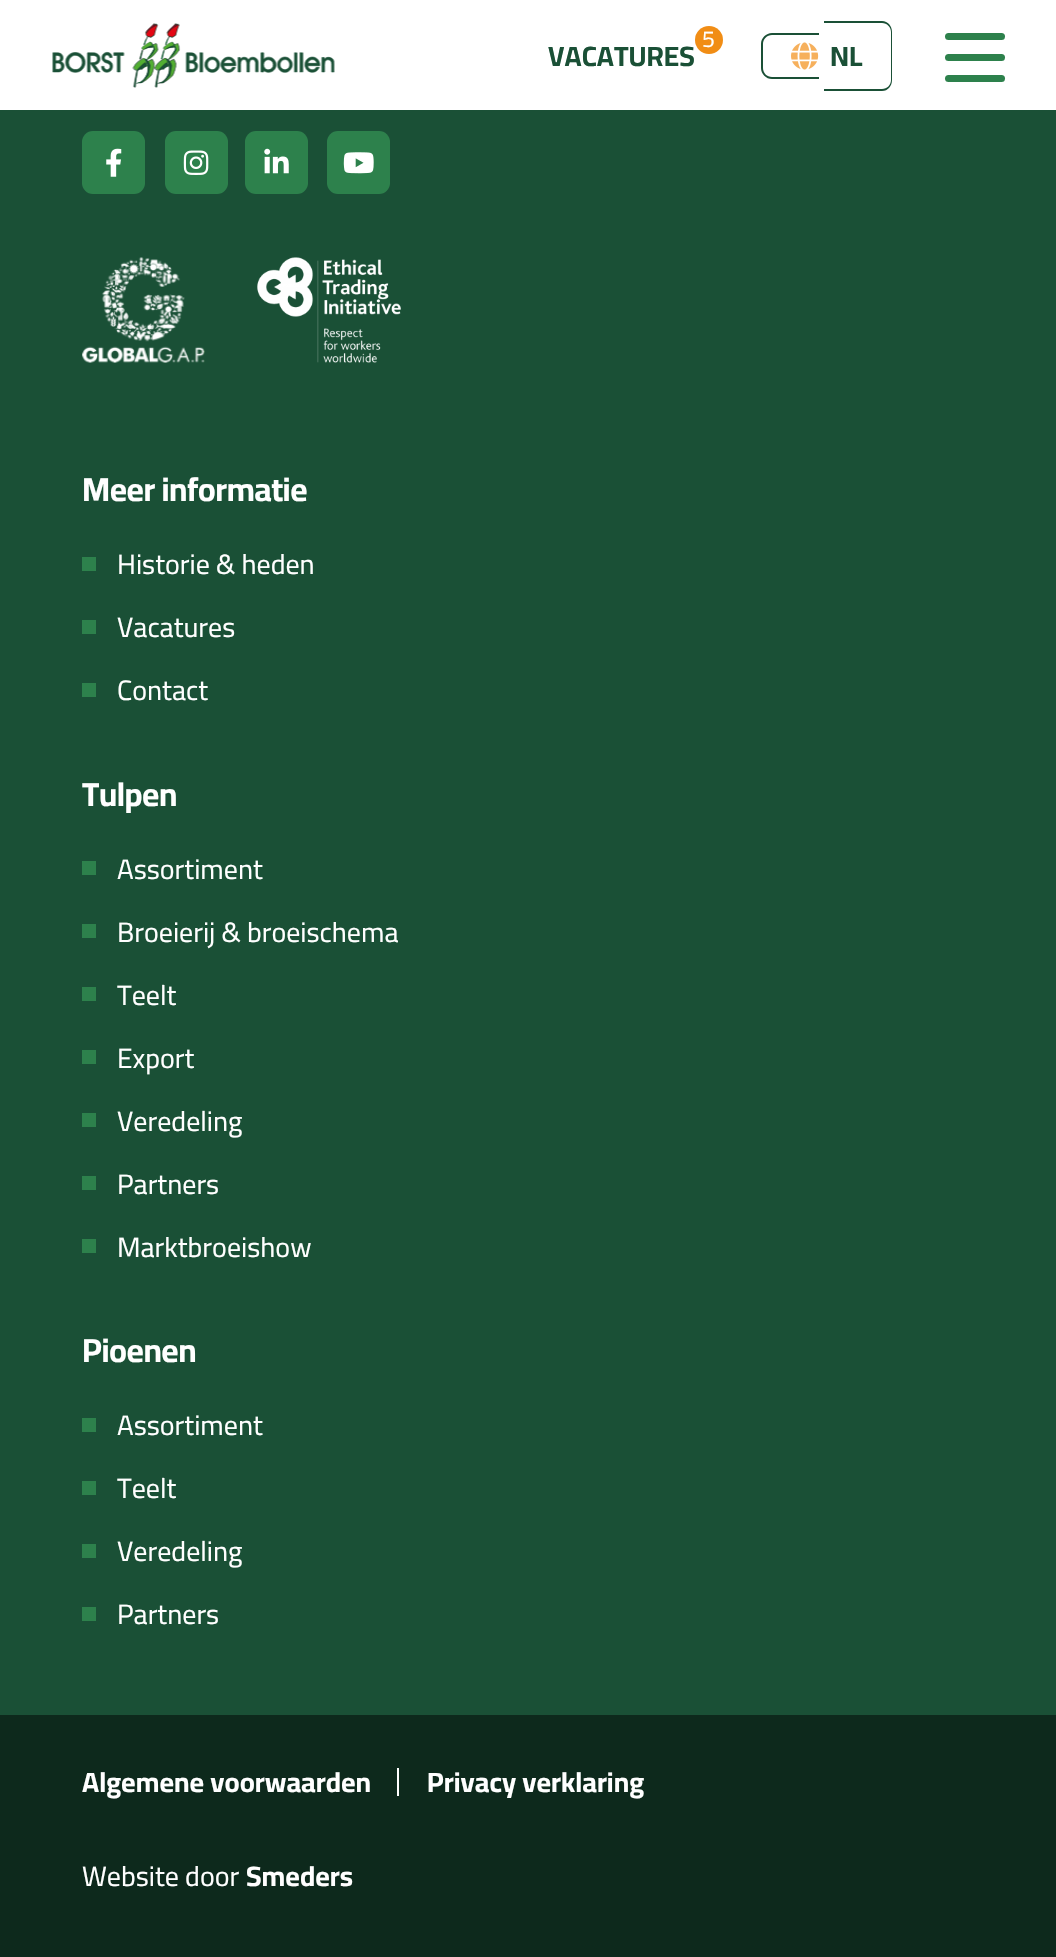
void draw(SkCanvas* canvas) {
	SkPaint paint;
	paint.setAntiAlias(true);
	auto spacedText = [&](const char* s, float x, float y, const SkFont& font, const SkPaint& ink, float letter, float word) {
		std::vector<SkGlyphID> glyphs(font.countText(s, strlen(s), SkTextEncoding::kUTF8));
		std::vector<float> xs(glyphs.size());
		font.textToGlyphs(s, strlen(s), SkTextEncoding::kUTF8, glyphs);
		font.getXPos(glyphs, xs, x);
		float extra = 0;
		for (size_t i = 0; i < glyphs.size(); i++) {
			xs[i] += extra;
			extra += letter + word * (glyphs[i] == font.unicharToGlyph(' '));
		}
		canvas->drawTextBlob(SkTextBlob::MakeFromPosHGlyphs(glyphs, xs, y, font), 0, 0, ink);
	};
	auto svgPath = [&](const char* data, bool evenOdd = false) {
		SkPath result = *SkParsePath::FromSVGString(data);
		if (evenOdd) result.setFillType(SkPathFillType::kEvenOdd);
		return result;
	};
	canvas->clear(0xff1a5036);
	paint.setColor(0xffffffff);
	canvas->drawRect(SkRect::MakeXYWH(0, 0, 1056, 110), paint);
	canvas->drawImageRect(SkImages::DeferredFromEncodedData(SkData::MakeFromFileName("img1.png")), SkRect::MakeXYWH(52, 23, 283, 65), SkSamplingOptions());
	paint.setColor(0xfff18d15);
	canvas->drawCircle(709, 40, 14, paint);
	SkFont f1(fontMgr->matchFamilyStyle("Cairo", SkFontStyle::Normal()), 23);
	f1.setSubpixel(true);
	paint.setColor(0xffffffff);
	canvas->drawString("5", 702, 47, f1, paint);
	SkFont f2(fontMgr->matchFamilyStyle("Cairo", SkFontStyle::Bold()), 28);
	f2.setSubpixel(true);
	paint.setColor(0xff1a5036);
	canvas->drawString("VACATURES", 548, 66, f2, paint);
	canvas->drawPath(svgPath("M772 33H819V79H772C766 79 761 74 761 68V44C761 38 766 33 772 33ZM772 35H819V77H772C767 77 763 73 763 68V44C763 39 767 35 772 35Z", true), paint);
	canvas->drawPath(svgPath("M824 21H882C888 21 892 26 892 32V80C892 86 888 91 882 91H824ZM824 23H882C887 23 891 27 891 32V80C891 85 887 89 882 89H824Z", true), paint);
	canvas->drawImageRect(SkImages::DeferredFromEncodedData(SkData::MakeFromFileName("img2.png")), SkRect::MakeXYWH(791, 42, 28, 28), SkSamplingOptions());
	canvas->drawString("NL", 830, 66, f2, paint);
	paint.setColor(0xff2d814c);
	canvas->drawRoundRect(SkRect::MakeXYWH(945, 33, 60, 7), 3.5, 3.5, paint);
	canvas->drawRoundRect(SkRect::MakeXYWH(945, 54, 60, 7), 3.5, 3.5, paint);
	canvas->drawRoundRect(SkRect::MakeXYWH(945, 75, 60, 7), 3.5, 3.5, paint);
	canvas->drawRoundRect(SkRect::MakeXYWH(82, 131, 63, 63), 11, 11, paint);
	canvas->drawImageRect(SkImages::DeferredFromEncodedData(SkData::MakeFromFileName("img3.png")), SkRect::MakeXYWH(106, 148, 16, 29), SkSamplingOptions());
	canvas->drawRoundRect(SkRect::MakeXYWH(165, 131, 63, 63), 11, 11, paint);
	canvas->drawImageRect(SkImages::DeferredFromEncodedData(SkData::MakeFromFileName("img4.png")), SkRect::MakeXYWH(183, 150, 26, 25), SkSamplingOptions());
	canvas->drawRoundRect(SkRect::MakeXYWH(245, 131, 63, 63), 11, 11, paint);
	canvas->drawImageRect(SkImages::DeferredFromEncodedData(SkData::MakeFromFileName("img5.png")), SkRect::MakeXYWH(264, 148, 25, 26), SkSamplingOptions());
	canvas->drawRoundRect(SkRect::MakeXYWH(327, 131, 63, 63), 11, 11, paint);
	canvas->drawImageRect(SkImages::DeferredFromEncodedData(SkData::MakeFromFileName("img6.png")), SkRect::MakeXYWH(343, 152, 31, 22), SkSamplingOptions());
	canvas->drawImageRect(SkImages::DeferredFromEncodedData(SkData::MakeFromFileName("img7.png")), SkRect::MakeXYWH(82, 257, 123, 106), SkSamplingOptions());
	canvas->drawImageRect(SkImages::DeferredFromEncodedData(SkData::MakeFromFileName("img8.png")), SkRect::MakeXYWH(257, 257, 144, 106), SkSamplingOptions());
	SkFont f3(fontMgr->matchFamilyStyle("Cairo", SkFontStyle::Bold()), 33.25);
	f3.setSubpixel(true);
	paint.setColor(0xffffffff);
	spacedText("Meer informatie", 82, 501, f3, paint, -0.5, 0);
	paint.setColor(0xff2d814c);
	canvas->drawRect(SkRect::MakeXYWH(82, 557, 14, 14), paint);
	SkFont f4(fontMgr->matchFamilyStyle("Cairo", SkFontStyle::Normal()), 28);
	f4.setSubpixel(true);
	paint.setColor(0xffffffff);
	canvas->drawString("Historie & heden", 117, 574, f4, paint);
	paint.setColor(0xff2d814c);
	canvas->drawRect(SkRect::MakeXYWH(82, 620, 14, 14), paint);
	paint.setColor(0xffffffff);
	canvas->drawString("Vacatures", 117, 637, f4, paint);
	paint.setColor(0xff2d814c);
	canvas->drawRect(SkRect::MakeXYWH(82, 683, 14, 14), paint);
	paint.setColor(0xffffffff);
	canvas->drawString("Contact", 117, 700, f4, paint);
	spacedText("Tulpen", 82, 806, f3, paint, -0.5, 0);
	paint.setColor(0xff2d814c);
	canvas->drawRect(SkRect::MakeXYWH(82, 861, 14, 14), paint);
	paint.setColor(0xffffffff);
	canvas->drawString("Assortiment", 117, 879, f4, paint);
	paint.setColor(0xff2d814c);
	canvas->drawRect(SkRect::MakeXYWH(82, 924, 14, 14), paint);
	paint.setColor(0xffffffff);
	canvas->drawString("Broeierij & broeischema", 117, 942, f4, paint);
	paint.setColor(0xff2d814c);
	canvas->drawRect(SkRect::MakeXYWH(82, 987, 14, 14), paint);
	paint.setColor(0xffffffff);
	canvas->drawString("Teelt", 117, 1005, f4, paint);
	paint.setColor(0xff2d814c);
	canvas->drawRect(SkRect::MakeXYWH(82, 1050, 14, 14), paint);
	paint.setColor(0xffffffff);
	canvas->drawString("Export", 117, 1068, f4, paint);
	paint.setColor(0xff2d814c);
	canvas->drawRect(SkRect::MakeXYWH(82, 1113, 14, 14), paint);
	paint.setColor(0xffffffff);
	canvas->drawString("Veredeling", 117, 1131, f4, paint);
	paint.setColor(0xff2d814c);
	canvas->drawRect(SkRect::MakeXYWH(82, 1176, 14, 14), paint);
	paint.setColor(0xffffffff);
	canvas->drawString("Partners", 117, 1194, f4, paint);
	paint.setColor(0xff2d814c);
	canvas->drawRect(SkRect::MakeXYWH(82, 1239, 14, 14), paint);
	paint.setColor(0xffffffff);
	canvas->drawString("Marktbroeishow", 117, 1257, f4, paint);
	spacedText("Pioenen", 82, 1362, f3, paint, -0.5, 0);
	paint.setColor(0xff2d814c);
	canvas->drawRect(SkRect::MakeXYWH(82, 1418, 14, 14), paint);
	paint.setColor(0xffffffff);
	canvas->drawString("Assortiment", 117, 1435, f4, paint);
	paint.setColor(0xff2d814c);
	canvas->drawRect(SkRect::MakeXYWH(82, 1481, 14, 14), paint);
	paint.setColor(0xffffffff);
	canvas->drawString("Teelt", 117, 1498, f4, paint);
	paint.setColor(0xff2d814c);
	canvas->drawRect(SkRect::MakeXYWH(82, 1544, 14, 14), paint);
	paint.setColor(0xffffffff);
	canvas->drawString("Veredeling", 117, 1561, f4, paint);
	paint.setColor(0xff2d814c);
	canvas->drawRect(SkRect::MakeXYWH(82, 1607, 14, 14), paint);
	paint.setColor(0xffffffff);
	canvas->drawString("Partners", 117, 1624, f4, paint);
	paint.setColor(0xff0d291c);
	canvas->drawRect(SkRect::MakeXYWH(0, 1715, 1056, 242), paint);
	paint.setColor(0xffffffff);
	canvas->drawString("Algemene voorwaarden", 82, 1792, f2, paint);
	canvas->drawRect(SkRect::MakeXYWH(397, 1768, 2, 28), paint);
	canvas->drawString("Privacy verklaring", 427, 1792, f2, paint);
	canvas->drawString("Website door", 82, 1886, f4, paint);
	canvas->drawString("Smeders", 246, 1886, f2, paint);
}
